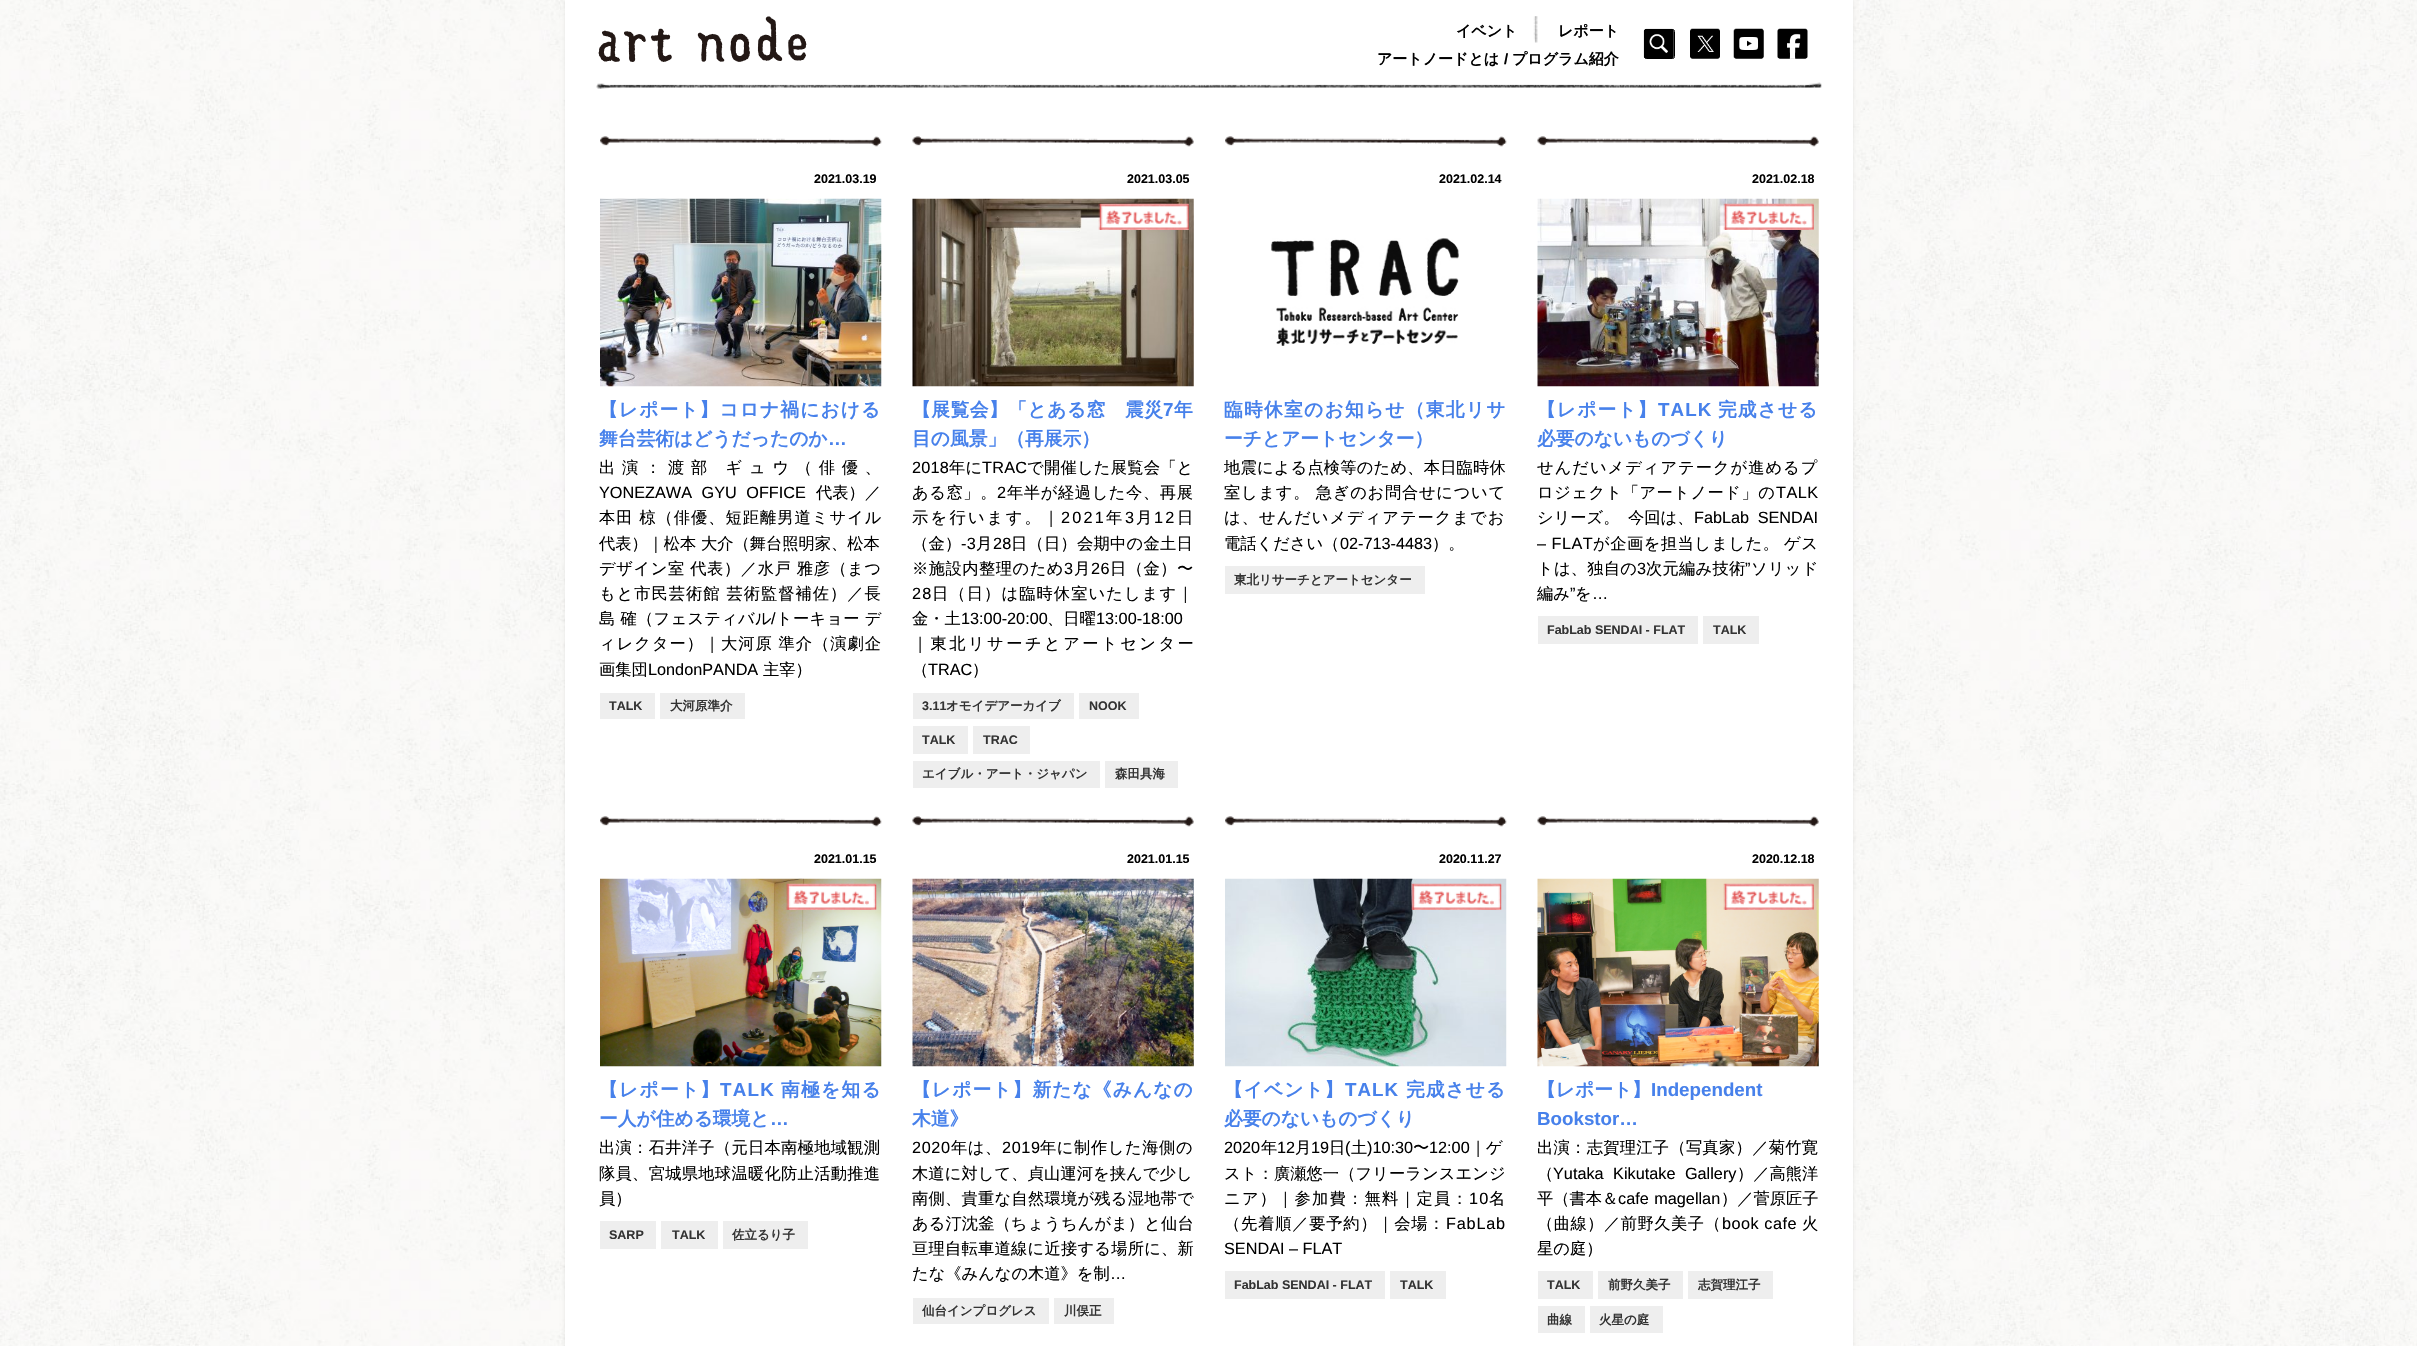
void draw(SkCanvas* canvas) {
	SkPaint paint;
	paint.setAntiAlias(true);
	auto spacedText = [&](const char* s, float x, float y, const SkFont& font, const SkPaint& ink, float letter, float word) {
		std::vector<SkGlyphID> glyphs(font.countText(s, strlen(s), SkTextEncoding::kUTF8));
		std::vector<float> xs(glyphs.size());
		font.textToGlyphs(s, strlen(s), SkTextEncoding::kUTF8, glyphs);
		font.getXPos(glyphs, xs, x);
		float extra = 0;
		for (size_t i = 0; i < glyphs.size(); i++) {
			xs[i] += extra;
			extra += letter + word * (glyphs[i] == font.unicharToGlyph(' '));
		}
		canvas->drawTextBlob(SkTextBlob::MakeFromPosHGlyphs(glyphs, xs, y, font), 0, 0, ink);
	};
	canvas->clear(0xffffffff);
	canvas->drawImageRect(SkImages::DeferredFromEncodedData(SkData::MakeFromFileName("img1.png")), SkRect::MakeXYWH(0, 0, 2417, 1346), SkSamplingOptions());
	paint.setColor(0x14000000);
	paint.setMaskFilter(SkMaskFilter::MakeBlur(kNormal_SkBlurStyle, 2));
	canvas->drawRect(SkRect::MakeXYWH(565, 0, 1288, 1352), paint);
	paint.setMaskFilter(nullptr);
	paint.setColor(0xffffffff);
	canvas->drawRect(SkRect::MakeXYWH(565, 0, 1288, 1346), paint);
	canvas->drawImageRect(SkImages::DeferredFromEncodedData(SkData::MakeFromFileName("img2.png")), SkRect::MakeXYWH(598, 16, 209, 46), SkSamplingOptions());
	canvas->drawImageRect(SkImages::DeferredFromEncodedData(SkData::MakeFromFileName("img3.png")), SkRect::MakeXYWH(1533, 16, 5, 27), SkSamplingOptions());
	SkFont f1(fontMgr->matchFamilyStyle("WenQuanYi Zen Hei", SkFontStyle::Bold()), 15);
	f1.setSubpixel(true);
	paint.setColor(0xff000000);
	canvas->drawString("イベント", 1456, 36, f1, paint);
	canvas->drawString("レポート", 1558, 36, f1, paint);
	canvas->drawString("アートノードとは", 1377, 64, f1, paint);
	SkFont f2(fontMgr->matchFamilyStyle("Liberation Sans", SkFontStyle::Bold()), 15);
	f2.setSubpixel(true);
	canvas->drawString("/", 1504, 64, f2, paint);
	canvas->drawString("プログラム紹介", 1512, 64, f1, paint);
	canvas->drawImageRect(SkImages::DeferredFromEncodedData(SkData::MakeFromFileName("img4.png")), SkRect::MakeXYWH(1643, 28, 31, 31), SkSamplingOptions());
	paint.setStroke(true);
	paint.setStrokeWidth(1);
	canvas->drawRoundRect(SkRect::MakeXYWH(1644.5, 29.5, 30, 29), 2, 2, paint);
	canvas->drawImageRect(SkImages::DeferredFromEncodedData(SkData::MakeFromFileName("img5.png")), SkRect::MakeXYWH(1690, 28, 30, 31), SkSamplingOptions());
	canvas->drawImageRect(SkImages::DeferredFromEncodedData(SkData::MakeFromFileName("img6.png")), SkRect::MakeXYWH(1733, 28, 31, 31), SkSamplingOptions());
	canvas->drawImageRect(SkImages::DeferredFromEncodedData(SkData::MakeFromFileName("img7.png")), SkRect::MakeXYWH(1777, 28, 31, 31), SkSamplingOptions());
	canvas->drawImageRect(SkImages::DeferredFromEncodedData(SkData::MakeFromFileName("img8.png")), SkRect::MakeXYWH(596, 82, 1226, 7), SkSamplingOptions());
	canvas->drawImageRect(SkImages::DeferredFromEncodedData(SkData::MakeFromFileName("img9.png")), SkRect::MakeXYWH(600, 136, 282, 11), SkSamplingOptions());
	SkFont f3(fontMgr->matchFamilyStyle("Liberation Sans", SkFontStyle::Bold()), 12.5);
	f3.setSubpixel(true);
	paint.setStroke(false);
	canvas->drawString("2021.03.19", 814, 183, f3, paint);
	canvas->drawImageRect(SkImages::DeferredFromEncodedData(SkData::MakeFromFileName("img10.png")), SkRect::MakeXYWH(600, 198, 282, 189), SkSamplingOptions());
	SkFont f4(fontMgr->matchFamilyStyle("WenQuanYi Zen Hei", SkFontStyle::Bold()), 18.75);
	f4.setSubpixel(true);
	paint.setColor(0xff4781eb);
	spacedText("【レポート】コロナ禍における", 599, 416, f4, paint, 1.1, 0);
	canvas->drawString("舞台芸術はどうだったのか", 599, 445, f4, paint);
	SkFont f5(fontMgr->matchFamilyStyle("Liberation Sans", SkFontStyle::Bold()), 18.75);
	f5.setSubpixel(true);
	canvas->drawString("…", 828, 445, f5, paint);
	SkFont f6(fontMgr->matchFamilyStyle("WenQuanYi Zen Hei", SkFontStyle(500, SkFontStyle::kNormal_Width, SkFontStyle::kUpright_Slant)), 16.25);
	f6.setSubpixel(true);
	paint.setColor(0xff000000);
	spacedText("出演：渡部 ギュウ（俳優、", 599, 473, f6, paint, 6.75, 0);
	SkFont f7(fontMgr->matchFamilyStyle("Liberation Sans", SkFontStyle::Normal()), 16.25);
	f7.setSubpixel(true);
	spacedText("YONEZAWA GYU OFFICE", 599, 498, f7, paint, 0, 5);
	canvas->drawString("代表）／", 816, 498, f6, paint);
	spacedText("本田 椋（俳優、短距離男道ミサイル", 599, 523, f6, paint, 1, 0);
	canvas->drawString("代表）｜松本 大介（舞台照明家、松本", 599, 549, f6, paint);
	spacedText("デザイン室 代表）／水戸 雅彦（まつ", 599, 574, f6, paint, 0.6, 0);
	spacedText("もと市民芸術館 芸術監督補佐）／長", 599, 599, f6, paint, 1, 0);
	spacedText("島 確（フェスティバル", 599, 624, f6, paint, 0.25, 0);
	spacedText("/", 771, 624, f7, paint, 0.25, 0);
	spacedText("トーキョー デ", 776, 624, f6, paint, 0.25, 0);
	spacedText("ィレクター）｜大河原 準介（演劇企", 599, 649, f6, paint, 1, 0);
	canvas->drawString("画集団", 599, 675, f6, paint);
	canvas->drawString("LondonPANDA", 648, 675, f7, paint);
	canvas->drawString("主宰）", 763, 675, f6, paint);
	paint.setColor(0xffeeeeee);
	canvas->drawRect(SkRect::MakeXYWH(600, 693, 55, 26), paint);
	paint.setColor(0xff333333);
	canvas->drawString("TALK", 609, 710, f3, paint);
	paint.setColor(0xffeeeeee);
	canvas->drawRect(SkRect::MakeXYWH(660, 693, 85, 26), paint);
	SkFont f8(fontMgr->matchFamilyStyle("WenQuanYi Zen Hei", SkFontStyle::Bold()), 12.5);
	f8.setSubpixel(true);
	paint.setColor(0xff333333);
	canvas->drawString("大河原準介", 670, 710, f8, paint);
	canvas->drawImageRect(SkImages::DeferredFromEncodedData(SkData::MakeFromFileName("img11.png")), SkRect::MakeXYWH(912, 136, 282, 11), SkSamplingOptions());
	paint.setColor(0xff000000);
	canvas->drawString("2021.03.05", 1127, 183, f3, paint);
	canvas->drawImageRect(SkImages::DeferredFromEncodedData(SkData::MakeFromFileName("img12.png")), SkRect::MakeXYWH(912, 198, 282, 189), SkSamplingOptions());
	canvas->drawImageRect(SkImages::DeferredFromEncodedData(SkData::MakeFromFileName("img13.png")), SkRect::MakeXYWH(1098, 203, 91, 27), SkSamplingOptions());
	paint.setColor(0xff4781eb);
	spacedText("【展覧会】「とある窓　震災", 912, 416, f4, paint, 0.5, 0);
	spacedText("7", 1163, 416, f5, paint, 0.5, 0);
	spacedText("年", 1174, 416, f4, paint, 0.5, 0);
	canvas->drawString("目の風景」（再展示）", 912, 445, f4, paint);
	paint.setColor(0xff000000);
	spacedText("2018", 912, 473, f7, paint, 0.25, 0);
	spacedText("年に", 949, 473, f6, paint, 0.25, 0);
	spacedText("TRAC", 982, 473, f7, paint, 0.25, 0);
	spacedText("で開催した展覧会「と", 1027, 473, f6, paint, 0.25, 0);
	spacedText("ある窓」。", 912, 498, f6, paint, 0.6, 0);
	spacedText("2", 997, 498, f7, paint, 0.6, 0);
	spacedText("年半が経過した今、再展", 1007, 498, f6, paint, 0.6, 0);
	spacedText("示を行います。｜", 912, 523, f6, paint, 2.25, 0);
	spacedText("2021", 1061, 523, f7, paint, 2.25, 0);
	spacedText("年", 1106, 523, f6, paint, 2.25, 0);
	spacedText("3", 1125, 523, f7, paint, 2.25, 0);
	spacedText("月", 1136, 523, f6, paint, 2.25, 0);
	spacedText("12", 1154, 523, f7, paint, 2.25, 0);
	spacedText("日", 1177, 523, f6, paint, 2.25, 0);
	spacedText("（金）", 912, 549, f6, paint, 0.25, 0);
	spacedText("-3", 961, 549, f7, paint, 0.25, 0);
	spacedText("月", 976, 549, f6, paint, 0.25, 0);
	spacedText("28", 993, 549, f7, paint, 0.25, 0);
	spacedText("日（日）会期中の金土日", 1011, 549, f6, paint, 0.25, 0);
	spacedText("※施設内整理のため", 912, 574, f6, paint, 0.5, 0);
	spacedText("3", 1064, 574, f7, paint, 0.5, 0);
	spacedText("月", 1074, 574, f6, paint, 0.5, 0);
	spacedText("26", 1091, 574, f7, paint, 0.5, 0);
	spacedText("日（金）〜", 1110, 574, f6, paint, 0.5, 0);
	spacedText("28", 912, 599, f7, paint, 1.1, 0);
	spacedText("日（日）は臨時休室いたします｜", 932, 599, f6, paint, 1.1, 0);
	canvas->drawString("金・土", 912, 624, f6, paint);
	canvas->drawString("13:00-20:00", 961, 624, f7, paint);
	canvas->drawString("、日曜", 1047, 624, f6, paint);
	canvas->drawString("13:00-18:00", 1096, 624, f7, paint);
	spacedText("｜東北リサーチとアートセンター", 912, 649, f6, paint, 2.5, 0);
	canvas->drawString("（", 912, 675, f6, paint);
	canvas->drawString("TRAC", 928, 675, f7, paint);
	canvas->drawString("）", 972, 675, f6, paint);
	paint.setColor(0xffeeeeee);
	canvas->drawRect(SkRect::MakeXYWH(913, 693, 161, 26), paint);
	paint.setColor(0xff333333);
	canvas->drawString("3.11", 922, 710, f3, paint);
	canvas->drawString("オモイデアーカイブ", 946, 710, f8, paint);
	paint.setColor(0xffeeeeee);
	canvas->drawRect(SkRect::MakeXYWH(1079, 693, 60, 26), paint);
	paint.setColor(0xff333333);
	canvas->drawString("NOOK", 1089, 710, f3, paint);
	paint.setColor(0xffeeeeee);
	canvas->drawRect(SkRect::MakeXYWH(913, 726, 55, 28), paint);
	paint.setColor(0xff333333);
	canvas->drawString("TALK", 922, 744, f3, paint);
	paint.setColor(0xffeeeeee);
	canvas->drawRect(SkRect::MakeXYWH(973, 726, 57, 28), paint);
	paint.setColor(0xff333333);
	canvas->drawString("TRAC", 983, 744, f3, paint);
	paint.setColor(0xffeeeeee);
	canvas->drawRect(SkRect::MakeXYWH(913, 761, 187, 27), paint);
	paint.setColor(0xff333333);
	canvas->drawString("エイブル・アート・ジャパン", 922, 778, f8, paint);
	paint.setColor(0xffeeeeee);
	canvas->drawRect(SkRect::MakeXYWH(1105, 761, 73, 27), paint);
	paint.setColor(0xff333333);
	canvas->drawString("森田具海", 1115, 778, f8, paint);
	canvas->drawImageRect(SkImages::DeferredFromEncodedData(SkData::MakeFromFileName("img9.png")), SkRect::MakeXYWH(1225, 136, 282, 11), SkSamplingOptions());
	paint.setColor(0xff000000);
	canvas->drawString("2021.02.14", 1439, 183, f3, paint);
	canvas->drawImageRect(SkImages::DeferredFromEncodedData(SkData::MakeFromFileName("img14.png")), SkRect::MakeXYWH(1271, 238, 188, 108), SkSamplingOptions());
	paint.setColor(0xff4781eb);
	spacedText("臨時休室のお知らせ（東北リサ", 1224, 416, f4, paint, 1.25, 0);
	canvas->drawString("ーチとアートセンター）", 1224, 445, f4, paint);
	paint.setColor(0xff000000);
	spacedText("地震による点検等のため、本日臨時休", 1224, 473, f6, paint, 0.2, 0);
	spacedText("室します。 急ぎのお問合せについて", 1224, 498, f6, paint, 0.75, 0);
	spacedText("は、せんだいメディアテークまでお", 1224, 523, f6, paint, 1, 0);
	canvas->drawString("電話ください（", 1224, 549, f6, paint);
	canvas->drawString("02-713-4483", 1340, 549, f7, paint);
	canvas->drawString("）。", 1432, 549, f6, paint);
	paint.setColor(0xffeeeeee);
	canvas->drawRect(SkRect::MakeXYWH(1225, 566, 200, 28), paint);
	paint.setColor(0xff333333);
	canvas->drawString("東北リサーチとアートセンター", 1234, 584, f8, paint);
	canvas->drawImageRect(SkImages::DeferredFromEncodedData(SkData::MakeFromFileName("img11.png")), SkRect::MakeXYWH(1537, 136, 282, 11), SkSamplingOptions());
	paint.setColor(0xff000000);
	canvas->drawString("2021.02.18", 1752, 183, f3, paint);
	canvas->drawImageRect(SkImages::DeferredFromEncodedData(SkData::MakeFromFileName("img15.png")), SkRect::MakeXYWH(1537, 198, 282, 189), SkSamplingOptions());
	canvas->drawImageRect(SkImages::DeferredFromEncodedData(SkData::MakeFromFileName("img16.png")), SkRect::MakeXYWH(1723, 203, 91, 27), SkSamplingOptions());
	paint.setColor(0xff4781eb);
	spacedText("【レポート】", 1537, 416, f4, paint, 1.1, 0);
	spacedText("TALK", 1658, 416, f5, paint, 1.1, 0);
	spacedText("完成させる", 1718, 416, f4, paint, 1.1, 0);
	canvas->drawString("必要のないものづくり", 1537, 445, f4, paint);
	paint.setColor(0xff000000);
	spacedText("せんだいメディアテークが進めるプ", 1537, 473, f6, paint, 1, 0);
	spacedText("ロジェクト「アートノード」の", 1537, 498, f6, paint, 0.5, 0);
	spacedText("TALK", 1776, 498, f7, paint, 0.5, 0);
	canvas->drawString("シリーズ。", 1537, 523, f6, paint);
	canvas->drawString("今回は、", 1628, 523, f6, paint);
	spacedText("FabLab SENDAI", 1694, 523, f7, paint, 0, 4);
	spacedText("– FLAT", 1537, 549, f7, paint, 0.5, 0);
	spacedText("が企画を担当しました。", 1593, 549, f6, paint, 0.5, 0);
	spacedText("ゲス", 1784, 549, f6, paint, 0.5, 0);
	spacedText("トは、独自の", 1537, 574, f6, paint, 0.25, 0);
	spacedText("3", 1637, 574, f7, paint, 0.25, 0);
	spacedText("次元編み技術", 1646, 574, f6, paint, 0.25, 0);
	spacedText("”", 1745, 574, f7, paint, 0.25, 0);
	spacedText("ソリッド", 1751, 574, f6, paint, 0.25, 0);
	canvas->drawString("編み", 1537, 599, f6, paint);
	canvas->drawString("”", 1570, 599, f7, paint);
	canvas->drawString("を", 1575, 599, f6, paint);
	canvas->drawString("…", 1592, 599, f7, paint);
	paint.setColor(0xffeeeeee);
	canvas->drawRect(SkRect::MakeXYWH(1538, 616, 160, 28), paint);
	paint.setColor(0xff333333);
	canvas->drawString("FabLab SENDAI - FLAT", 1547, 634, f3, paint);
	paint.setColor(0xffeeeeee);
	canvas->drawRect(SkRect::MakeXYWH(1703, 616, 56, 28), paint);
	paint.setColor(0xff333333);
	canvas->drawString("TALK", 1713, 634, f3, paint);
	canvas->drawImageRect(SkImages::DeferredFromEncodedData(SkData::MakeFromFileName("img9.png")), SkRect::MakeXYWH(600, 816, 282, 11), SkSamplingOptions());
	paint.setColor(0xff000000);
	canvas->drawString("2021.01.15", 814, 863, f3, paint);
	canvas->drawImageRect(SkImages::DeferredFromEncodedData(SkData::MakeFromFileName("img17.png")), SkRect::MakeXYWH(600, 878, 282, 189), SkSamplingOptions());
	canvas->drawImageRect(SkImages::DeferredFromEncodedData(SkData::MakeFromFileName("img18.png")), SkRect::MakeXYWH(786, 883, 91, 27), SkSamplingOptions());
	paint.setColor(0xff4781eb);
	spacedText("【レポート】", 599, 1096, f4, paint, 1.25, 0);
	spacedText("TALK", 720, 1096, f5, paint, 1.25, 0);
	spacedText("南極を知る", 781, 1096, f4, paint, 1.25, 0);
	canvas->drawString("ー人が住める環境と", 599, 1125, f4, paint);
	canvas->drawString("…", 770, 1125, f5, paint);
	paint.setColor(0xff000000);
	spacedText("出演：石井洋子（元日本南極地域観測", 599, 1153, f6, paint, 0.3, 0);
	spacedText("隊員、宮城県地球温暖化防止活動推進", 599, 1179, f6, paint, 0.3, 0);
	canvas->drawString("員）", 599, 1204, f6, paint);
	paint.setColor(0xffeeeeee);
	canvas->drawRect(SkRect::MakeXYWH(600, 1221, 56, 28), paint);
	paint.setColor(0xff333333);
	canvas->drawString("SARP", 609, 1239, f3, paint);
	paint.setColor(0xffeeeeee);
	canvas->drawRect(SkRect::MakeXYWH(661, 1221, 57, 28), paint);
	paint.setColor(0xff333333);
	canvas->drawString("TALK", 672, 1239, f3, paint);
	paint.setColor(0xffeeeeee);
	canvas->drawRect(SkRect::MakeXYWH(723, 1221, 85, 28), paint);
	paint.setColor(0xff333333);
	canvas->drawString("佐立るり子", 732, 1239, f8, paint);
	canvas->drawImageRect(SkImages::DeferredFromEncodedData(SkData::MakeFromFileName("img11.png")), SkRect::MakeXYWH(912, 816, 282, 11), SkSamplingOptions());
	paint.setColor(0xff000000);
	canvas->drawString("2021.01.15", 1127, 863, f3, paint);
	canvas->drawImageRect(SkImages::DeferredFromEncodedData(SkData::MakeFromFileName("img19.png")), SkRect::MakeXYWH(912, 878, 282, 189), SkSamplingOptions());
	paint.setColor(0xff4781eb);
	spacedText("【レポート】新たな《みんなの", 912, 1096, f4, paint, 1.1, 0);
	canvas->drawString("木道》", 912, 1125, f4, paint);
	paint.setColor(0xff000000);
	spacedText("2020", 912, 1153, f7, paint, 0.6, 0);
	spacedText("年は、", 951, 1153, f6, paint, 0.6, 0);
	spacedText("2019", 1002, 1153, f7, paint, 0.6, 0);
	spacedText("年に制作した海側の", 1040, 1153, f6, paint, 0.6, 0);
	spacedText("木道に対して、貞山運河を挟んで少し", 912, 1179, f6, paint, 0.1, 0);
	spacedText("南側、貴重な自然環境が残る湿地帯で", 912, 1204, f6, paint, 0.25, 0);
	spacedText("ある汀沈釜（ちょうちんがま）と仙台", 912, 1229, f6, paint, 0.1, 0);
	spacedText("亘理自転車道線に近接する場所に、新", 912, 1254, f6, paint, 0.25, 0);
	canvas->drawString("たな《みんなの木道》を制", 912, 1279, f6, paint);
	canvas->drawString("…", 1110, 1279, f7, paint);
	paint.setColor(0xffeeeeee);
	canvas->drawRect(SkRect::MakeXYWH(913, 1298, 136, 26), paint);
	paint.setColor(0xff333333);
	canvas->drawString("仙台インプログレス", 922, 1315, f8, paint);
	paint.setColor(0xffeeeeee);
	canvas->drawRect(SkRect::MakeXYWH(1054, 1298, 60, 26), paint);
	paint.setColor(0xff333333);
	canvas->drawString("川俣正", 1064, 1315, f8, paint);
	canvas->drawImageRect(SkImages::DeferredFromEncodedData(SkData::MakeFromFileName("img9.png")), SkRect::MakeXYWH(1225, 816, 282, 11), SkSamplingOptions());
	paint.setColor(0xff000000);
	canvas->drawString("2020.11.27", 1439, 863, f3, paint);
	canvas->drawImageRect(SkImages::DeferredFromEncodedData(SkData::MakeFromFileName("img20.png")), SkRect::MakeXYWH(1225, 878, 282, 189), SkSamplingOptions());
	canvas->drawImageRect(SkImages::DeferredFromEncodedData(SkData::MakeFromFileName("img21.png")), SkRect::MakeXYWH(1411, 883, 91, 27), SkSamplingOptions());
	paint.setColor(0xff4781eb);
	spacedText("【イベント】", 1224, 1096, f4, paint, 1, 0);
	spacedText("TALK", 1345, 1096, f5, paint, 1, 0);
	spacedText("完成させる", 1406, 1096, f4, paint, 1, 0);
	canvas->drawString("必要のないものづくり", 1224, 1125, f4, paint);
	paint.setColor(0xff000000);
	canvas->drawString("2020", 1224, 1153, f7, paint);
	canvas->drawString("年", 1261, 1153, f6, paint);
	canvas->drawString("12", 1277, 1153, f7, paint);
	canvas->drawString("月", 1295, 1153, f6, paint);
	canvas->drawString("19", 1311, 1153, f7, paint);
	canvas->drawString("日", 1329, 1153, f6, paint);
	canvas->drawString("(", 1345, 1153, f7, paint);
	canvas->drawString("土", 1351, 1153, f6, paint);
	canvas->drawString(")10:30", 1367, 1153, f7, paint);
	canvas->drawString("〜", 1413, 1153, f6, paint);
	canvas->drawString("12:00", 1429, 1153, f7, paint);
	canvas->drawString("｜ゲ", 1470, 1153, f6, paint);
	spacedText("スト：廣瀬悠一（フリーランスエンジ", 1224, 1179, f6, paint, 0.1, 0);
	spacedText("ニア）｜参加費：無料｜定員：", 1224, 1204, f6, paint, 1.25, 0);
	spacedText("10", 1469, 1204, f7, paint, 1.25, 0);
	spacedText("名", 1489, 1204, f6, paint, 1.25, 0);
	spacedText("（先着順／要予約）｜会場：", 1224, 1229, f6, paint, 0.8, 0);
	spacedText("FabLab", 1446, 1229, f7, paint, 0.8, 0);
	canvas->drawString("SENDAI – FLAT", 1224, 1254, f7, paint);
	paint.setColor(0xffeeeeee);
	canvas->drawRect(SkRect::MakeXYWH(1225, 1271, 160, 28), paint);
	paint.setColor(0xff333333);
	canvas->drawString("FabLab SENDAI - FLAT", 1234, 1289, f3, paint);
	paint.setColor(0xffeeeeee);
	canvas->drawRect(SkRect::MakeXYWH(1390, 1271, 56, 28), paint);
	paint.setColor(0xff333333);
	canvas->drawString("TALK", 1400, 1289, f3, paint);
	canvas->drawImageRect(SkImages::DeferredFromEncodedData(SkData::MakeFromFileName("img11.png")), SkRect::MakeXYWH(1537, 816, 282, 11), SkSamplingOptions());
	paint.setColor(0xff000000);
	canvas->drawString("2020.12.18", 1752, 863, f3, paint);
	canvas->drawImageRect(SkImages::DeferredFromEncodedData(SkData::MakeFromFileName("img22.png")), SkRect::MakeXYWH(1537, 878, 282, 189), SkSamplingOptions());
	canvas->drawImageRect(SkImages::DeferredFromEncodedData(SkData::MakeFromFileName("img23.png")), SkRect::MakeXYWH(1723, 883, 91, 27), SkSamplingOptions());
	paint.setColor(0xff4781eb);
	canvas->drawString("【レポート】", 1537, 1096, f4, paint);
	canvas->drawString("Independent", 1651, 1096, f5, paint);
	canvas->drawString("Bookstor…", 1537, 1125, f5, paint);
	paint.setColor(0xff000000);
	spacedText("出演：志賀理江子（写真家）／菊竹寛", 1537, 1153, f6, paint, 0.3, 0);
	canvas->drawString("（", 1537, 1179, f6, paint);
	spacedText("Yutaka Kikutake Gallery", 1553, 1179, f7, paint, 0, 5);
	canvas->drawString("）／高熊洋", 1737, 1179, f6, paint);
	canvas->drawString("平（書本＆", 1537, 1204, f6, paint);
	spacedText("cafe magellan", 1618, 1204, f7, paint, 0, 1);
	canvas->drawString("）／菅原匠子", 1721, 1204, f6, paint);
	spacedText("（曲線）／前野久美子（", 1537, 1229, f6, paint, 0.5, 0);
	spacedText("book cafe", 1722, 1229, f7, paint, 0.5, 0);
	spacedText("火", 1802, 1229, f6, paint, 0.5, 0);
	canvas->drawString("星の庭）", 1537, 1254, f6, paint);
	paint.setColor(0xffeeeeee);
	canvas->drawRect(SkRect::MakeXYWH(1538, 1271, 55, 28), paint);
	paint.setColor(0xff333333);
	canvas->drawString("TALK", 1547, 1289, f3, paint);
	paint.setColor(0xffeeeeee);
	canvas->drawRect(SkRect::MakeXYWH(1598, 1271, 85, 28), paint);
	paint.setColor(0xff333333);
	canvas->drawString("前野久美子", 1608, 1289, f8, paint);
	paint.setColor(0xffeeeeee);
	canvas->drawRect(SkRect::MakeXYWH(1688, 1271, 85, 28), paint);
	paint.setColor(0xff333333);
	canvas->drawString("志賀理江子", 1698, 1289, f8, paint);
	paint.setColor(0xffeeeeee);
	canvas->drawRect(SkRect::MakeXYWH(1538, 1306, 47, 27), paint);
	paint.setColor(0xff333333);
	canvas->drawString("曲線", 1547, 1324, f8, paint);
	paint.setColor(0xffeeeeee);
	canvas->drawRect(SkRect::MakeXYWH(1590, 1306, 73, 27), paint);
	paint.setColor(0xff333333);
	canvas->drawString("火星の庭", 1599, 1324, f8, paint);
}
